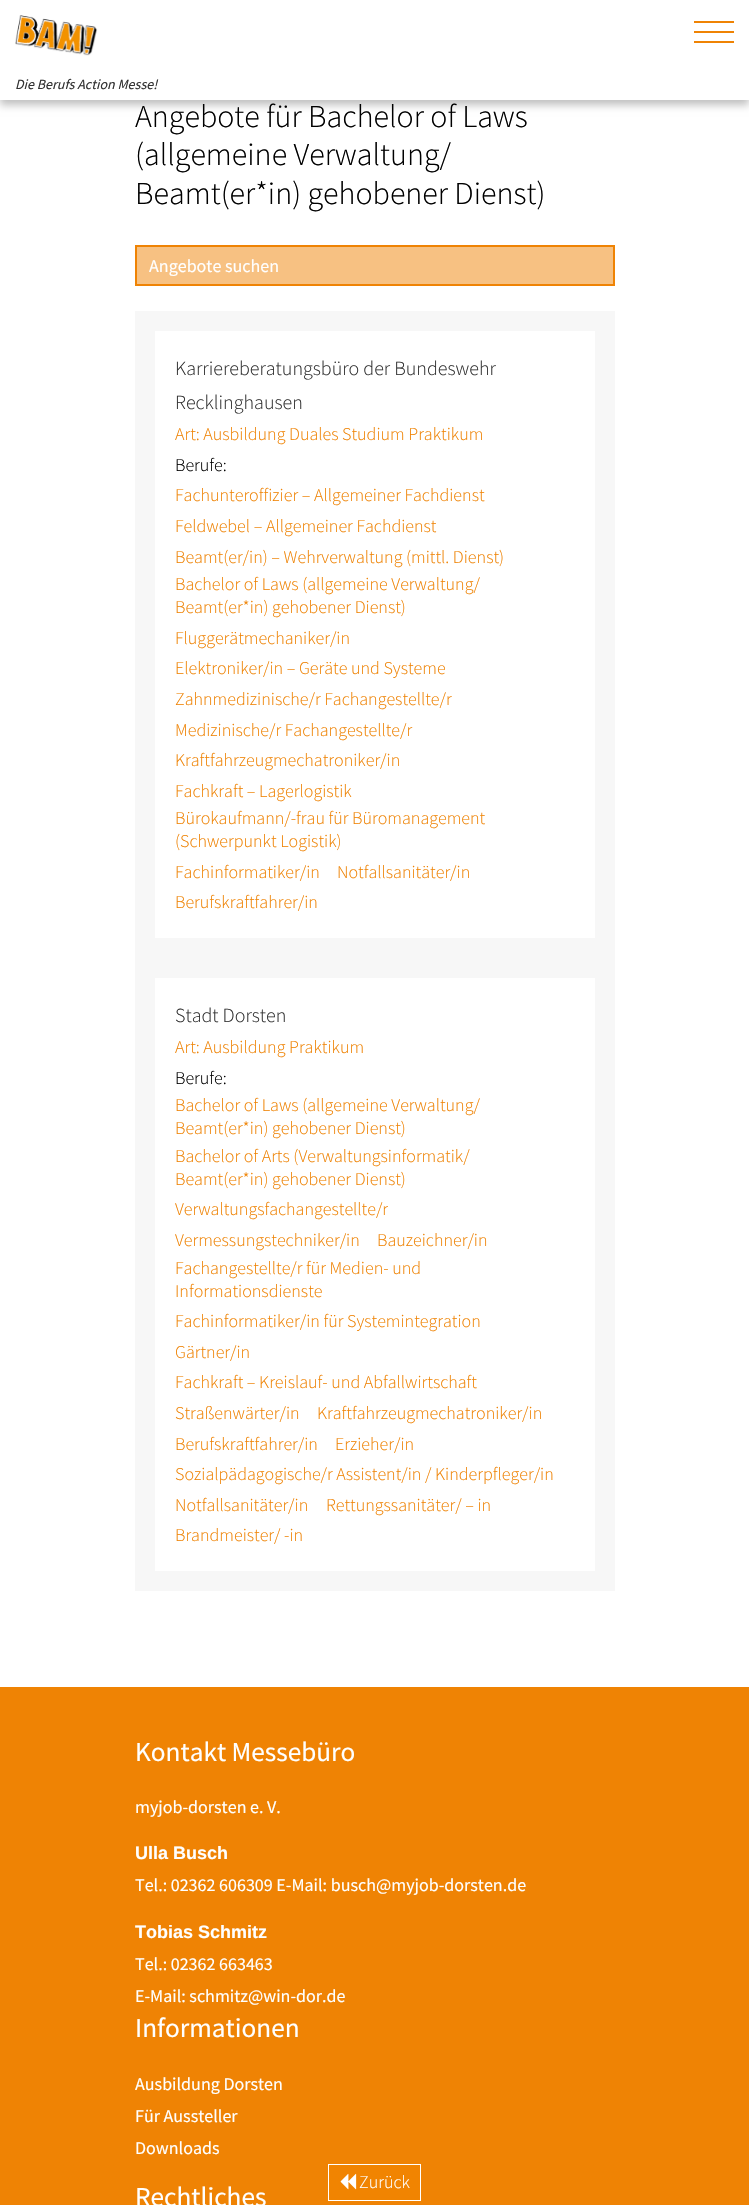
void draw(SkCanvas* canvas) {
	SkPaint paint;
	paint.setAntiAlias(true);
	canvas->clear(0xffffffff);
	paint.setColor(0x40000000);
	paint.setMaskFilter(SkMaskFilter::MakeBlur(kNormal_SkBlurStyle, 4));
	canvas->drawRect(SkRect::MakeXYWH(0, 5, 749, 100), paint);
	paint.setMaskFilter(nullptr);
	paint.setColor(0xffffffff);
	canvas->drawRect(SkRect::MakeXYWH(0, 0, 749, 100), paint);
	canvas->drawImageRect(SkImages::DeferredFromEncodedData(SkData::MakeFromFileName("img1.png")), SkRect::MakeXYWH(15, 15, 83, 41), SkSamplingOptions());
	paint.setColor(0xffef8304);
	canvas->drawRect(SkRect::MakeXYWH(694, 21, 40, 2), paint);
	canvas->drawRect(SkRect::MakeXYWH(694, 31, 40, 2), paint);
	canvas->drawRect(SkRect::MakeXYWH(694, 41, 40, 2), paint);
	SkFont f1(fontMgr->matchFamilyStyle("Source Sans Pro", SkFontStyle::Italic()), 14);
	f1.setSubpixel(true);
	paint.setColor(0xff333333);
	canvas->drawString("Die Berufs Action Messe!", 15, 89, f1, paint);
	SkFont f2(fontMgr->matchFamilyStyle("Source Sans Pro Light", SkFontStyle(300, SkFontStyle::kNormal_Width, SkFontStyle::kUpright_Slant)), 32);
	f2.setSubpixel(true);
	paint.setColor(0xff000000);
	canvas->drawString("Angebote für Bachelor of Laws", 135, 127, f2, paint);
	canvas->drawString("(allgemeine Verwaltung/", 135, 165, f2, paint);
	canvas->drawString("Beamt(er*in) gehobener Dienst)", 135, 204, f2, paint);
	paint.setColor(0xfff7c182);
	canvas->drawRect(SkRect::MakeXYWH(136, 246, 478, 39), paint);
	paint.setStroke(true);
	paint.setStrokeWidth(2);
	paint.setColor(0xffef8304);
	canvas->drawRect(SkRect::MakeXYWH(136, 246, 478, 39), paint);
	SkFont f3(fontMgr->matchFamilyStyle("Source Sans Pro", SkFontStyle::Normal()), 18);
	f3.setSubpixel(true);
	paint.setStroke(false);
	paint.setColor(0xffffffff);
	canvas->drawString("Angebote suchen", 149, 272, f3, paint);
	paint.setColor(0xfff7f7f7);
	canvas->drawRect(SkRect::MakeXYWH(135, 311, 480, 1280), paint);
	paint.setColor(0xffffffff);
	canvas->drawRect(SkRect::MakeXYWH(155, 331, 440, 607), paint);
	SkFont f4(fontMgr->matchFamilyStyle("Source Sans Pro Light", SkFontStyle(300, SkFontStyle::kNormal_Width, SkFontStyle::kUpright_Slant)), 20);
	f4.setSubpixel(true);
	paint.setColor(0xff333333);
	canvas->drawString("Karriereberatungsbüro der Bundeswehr", 175, 375, f4, paint);
	canvas->drawString("Recklinghausen", 175, 409, f4, paint);
	SkFont f5(fontMgr->matchFamilyStyle("Source Sans Pro Light", SkFontStyle(300, SkFontStyle::kNormal_Width, SkFontStyle::kUpright_Slant)), 18);
	f5.setSubpixel(true);
	paint.setColor(0xffef8304);
	canvas->drawString("Art: Ausbildung Duales Studium Praktikum", 175, 440, f5, paint);
	paint.setColor(0xff000000);
	canvas->drawString("Berufe:", 175, 471, f5, paint);
	paint.setColor(0xffef8304);
	canvas->drawString("Fachunteroffizier – Allgemeiner Fachdienst", 175, 501, f5, paint);
	canvas->drawString("Feldwebel – Allgemeiner Fachdienst", 175, 532, f5, paint);
	canvas->drawString("Beamt(er/in) – Wehrverwaltung (mittl. Dienst)", 175, 563, f5, paint);
	canvas->drawString("Bachelor of Laws (allgemeine Verwaltung/", 175, 590, f5, paint);
	canvas->drawString("Beamt(er*in) gehobener Dienst)", 175, 613, f5, paint);
	canvas->drawString("Fluggerätmechaniker/in", 175, 644, f5, paint);
	canvas->drawString("Elektroniker/in – Geräte und Systeme", 175, 674, f5, paint);
	canvas->drawString("Zahnmedizinische/r Fachangestellte/r", 175, 705, f5, paint);
	canvas->drawString("Medizinische/r Fachangestellte/r", 175, 736, f5, paint);
	canvas->drawString("Kraftfahrzeugmechatroniker/in", 175, 766, f5, paint);
	canvas->drawString("Fachkraft – Lagerlogistik", 175, 797, f5, paint);
	canvas->drawString("Bürokaufmann/-frau für Büromanagement", 175, 824, f5, paint);
	canvas->drawString("(Schwerpunkt Logistik)", 175, 847, f5, paint);
	canvas->drawString("Fachinformatiker/in", 175, 878, f5, paint);
	canvas->drawString("Notfallsanitäter/in", 337, 878, f5, paint);
	canvas->drawString("Berufskraftfahrer/in", 175, 908, f5, paint);
	paint.setColor(0xffffffff);
	canvas->drawRect(SkRect::MakeXYWH(155, 978, 440, 593), paint);
	paint.setColor(0xff333333);
	canvas->drawString("Stadt Dorsten", 175, 1022, f4, paint);
	paint.setColor(0xffef8304);
	canvas->drawString("Art: Ausbildung Praktikum", 175, 1053, f5, paint);
	paint.setColor(0xff000000);
	canvas->drawString("Berufe:", 175, 1084, f5, paint);
	paint.setColor(0xffef8304);
	canvas->drawString("Bachelor of Laws (allgemeine Verwaltung/", 175, 1111, f5, paint);
	canvas->drawString("Beamt(er*in) gehobener Dienst)", 175, 1134, f5, paint);
	canvas->drawString("Bachelor of Arts (Verwaltungsinformatik/", 175, 1162, f5, paint);
	canvas->drawString("Beamt(er*in) gehobener Dienst)", 175, 1185, f5, paint);
	canvas->drawString("Verwaltungsfachangestellte/r", 175, 1215, f5, paint);
	canvas->drawString("Vermessungstechniker/in", 175, 1246, f5, paint);
	canvas->drawString("Bauzeichner/in", 377, 1246, f5, paint);
	canvas->drawString("Fachangestellte/r für Medien- und", 175, 1274, f5, paint);
	canvas->drawString("Informationsdienste", 175, 1297, f5, paint);
	canvas->drawString("Fachinformatiker/in für Systemintegration", 175, 1327, f5, paint);
	canvas->drawString("Gärtner/in", 175, 1358, f5, paint);
	canvas->drawString("Fachkraft – Kreislauf- und Abfallwirtschaft", 175, 1388, f5, paint);
	canvas->drawString("Straßenwärter/in", 175, 1419, f5, paint);
	canvas->drawString("Kraftfahrzeugmechatroniker/in", 317, 1419, f5, paint);
	canvas->drawString("Berufskraftfahrer/in", 175, 1450, f5, paint);
	canvas->drawString("Erzieher/in", 335, 1450, f5, paint);
	canvas->drawString("Sozialpädagogische/r Assistent/in / Kinderpfleger/in", 175, 1480, f5, paint);
	canvas->drawString("Notfallsanitäter/in", 175, 1511, f5, paint);
	canvas->drawString("Rettungssanitäter/ – in", 326, 1511, f5, paint);
	canvas->drawString("Brandmeister/ -in", 175, 1541, f5, paint);
	canvas->drawRect(SkRect::MakeXYWH(0, 1687, 749, 518), paint);
	paint.setColor(0xfff18401);
	canvas->drawRect(SkRect::MakeXYWH(328.5, 2164.5, 92, 36), paint);
	paint.setStroke(true);
	paint.setStrokeWidth(1);
	paint.setColor(0xffffffff);
	canvas->drawRect(SkRect::MakeXYWH(328.5, 2164.5, 92, 36), paint);
	canvas->drawImageRect(SkImages::DeferredFromEncodedData(SkData::MakeFromFileName("img2.png")), SkRect::MakeXYWH(340, 2173, 17, 17), SkSamplingOptions());
	paint.setStroke(false);
	canvas->drawString("Zurück", 359, 2188, f5, paint);
	SkFont f6(fontMgr->matchFamilyStyle("Source Sans Pro", SkFontStyle::Normal()), 27.25);
	f6.setSubpixel(true);
	canvas->drawString("Kontakt Messebüro", 135, 1761, f6, paint);
	canvas->drawString("myjob-dorsten e. V.", 135, 1813, f3, paint);
	SkFont f7(fontMgr->matchFamilyStyle("Liberation Sans", SkFontStyle::Bold()), 18);
	f7.setSubpixel(true);
	canvas->drawString("Ulla Busch", 135, 1859, f7, paint);
	canvas->drawString("Tel.: 02362 606309 E-Mail: busch@myjob-dorsten.de", 135, 1891, f3, paint);
	canvas->drawString("Tobias Schmitz", 135, 1938, f7, paint);
	canvas->drawString("Tel.: 02362 663463", 135, 1970, f3, paint);
	canvas->drawString("E-Mail: schmitz@win-dor.de", 135, 2002, f3, paint);
	canvas->drawString("Informationen", 135, 2037, f6, paint);
	canvas->drawString("Ausbildung Dorsten", 135, 2090, f3, paint);
	canvas->drawString("Für Aussteller", 135, 2122, f3, paint);
	canvas->drawString("Downloads", 135, 2154, f3, paint);
	canvas->drawString("Rechtliches", 135, 2206, f6, paint);
}
